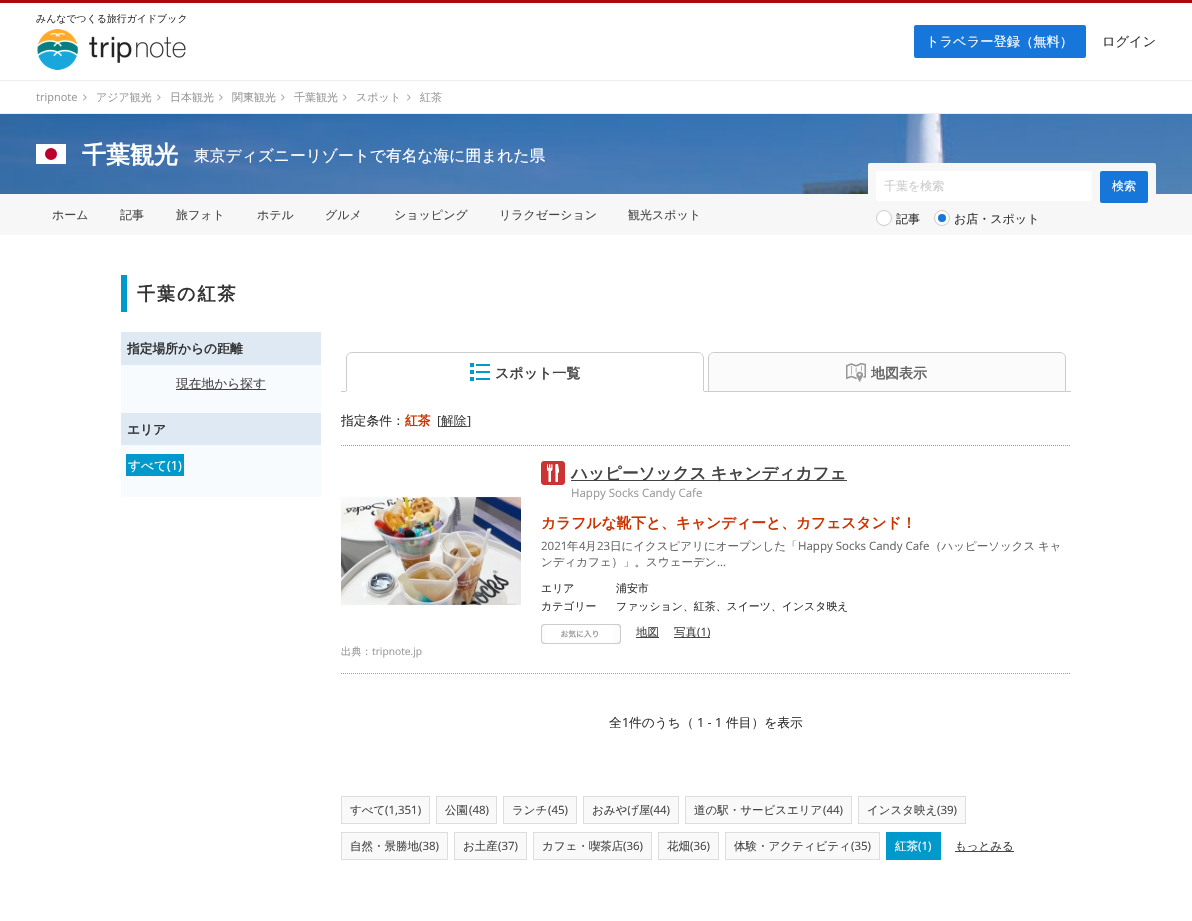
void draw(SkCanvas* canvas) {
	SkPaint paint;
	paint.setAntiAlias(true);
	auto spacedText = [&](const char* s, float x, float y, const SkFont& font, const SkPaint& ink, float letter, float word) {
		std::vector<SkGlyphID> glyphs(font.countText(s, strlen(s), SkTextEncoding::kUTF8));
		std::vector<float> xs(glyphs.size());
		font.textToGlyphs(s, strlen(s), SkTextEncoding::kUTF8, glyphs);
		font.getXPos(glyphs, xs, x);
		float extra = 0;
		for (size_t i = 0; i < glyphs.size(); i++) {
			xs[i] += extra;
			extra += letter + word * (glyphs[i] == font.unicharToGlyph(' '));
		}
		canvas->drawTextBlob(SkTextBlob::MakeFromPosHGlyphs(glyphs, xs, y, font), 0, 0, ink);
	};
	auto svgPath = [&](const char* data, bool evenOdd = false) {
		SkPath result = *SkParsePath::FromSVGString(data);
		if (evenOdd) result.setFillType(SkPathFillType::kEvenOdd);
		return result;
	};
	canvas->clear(0xffffffff);
	paint.setColor(0xffad080e);
	canvas->drawRect(SkRect::MakeXYWH(0, 0, 1192, 3), paint);
	SkFont f1(fontMgr->matchFamilyStyle("WenQuanYi Zen Hei", SkFontStyle(500, SkFontStyle::kNormal_Width, SkFontStyle::kUpright_Slant)), 9.9);
	f1.setSubpixel(true);
	paint.setColor(0xff333333);
	canvas->drawString("みんなでつくる旅行ガイドブック", 36, 22, f1, paint);
	canvas->drawImageRect(SkImages::DeferredFromEncodedData(SkData::MakeFromFileName("img1.png")), SkRect::MakeXYWH(37, 29, 149, 41), SkSamplingOptions());
	paint.setColor(0xff1776d9);
	canvas->drawRoundRect(SkRect::MakeXYWH(914, 25, 172, 33), 2, 2, paint);
	SkFont f2(fontMgr->matchFamilyStyle("WenQuanYi Zen Hei", SkFontStyle(500, SkFontStyle::kNormal_Width, SkFontStyle::kUpright_Slant)), 13.25);
	f2.setSubpixel(true);
	paint.setColor(0xffffffff);
	canvas->drawString("トラベラー登録（無料）", 926, 46, f2, paint);
	paint.setColor(0xff333333);
	canvas->drawString("ログイン", 1102, 46, f2, paint);
	paint.setColor(0xffeeeeee);
	canvas->drawRect(SkRect::MakeXYWH(0, 80, 1192, 1), paint);
	canvas->drawRect(SkRect::MakeXYWH(0, 113, 1192, 1), paint);
	SkFont f3(fontMgr->matchFamilyStyle("Open Sans", SkFontStyle::Normal()), 11);
	f3.setSubpixel(true);
	paint.setColor(0xff999999);
	canvas->drawString("tripnote", 36, 101, f3, paint);
	canvas->drawImageRect(SkImages::DeferredFromEncodedData(SkData::MakeFromFileName("img2.png")), SkRect::MakeXYWH(83, 94, 4, 7), SkSamplingOptions());
	SkFont f4(fontMgr->matchFamilyStyle("WenQuanYi Zen Hei", SkFontStyle(500, SkFontStyle::kNormal_Width, SkFontStyle::kUpright_Slant)), 11);
	f4.setSubpixel(true);
	canvas->drawString("アジア観光", 96, 101, f4, paint);
	canvas->drawImageRect(SkImages::DeferredFromEncodedData(SkData::MakeFromFileName("img2.png")), SkRect::MakeXYWH(157, 94, 4, 7), SkSamplingOptions());
	canvas->drawString("日本観光", 170, 101, f4, paint);
	canvas->drawImageRect(SkImages::DeferredFromEncodedData(SkData::MakeFromFileName("img2.png")), SkRect::MakeXYWH(219, 94, 4, 7), SkSamplingOptions());
	canvas->drawString("関東観光", 232, 101, f4, paint);
	canvas->drawImageRect(SkImages::DeferredFromEncodedData(SkData::MakeFromFileName("img2.png")), SkRect::MakeXYWH(281, 94, 4, 7), SkSamplingOptions());
	canvas->drawString("千葉観光", 294, 101, f4, paint);
	canvas->drawImageRect(SkImages::DeferredFromEncodedData(SkData::MakeFromFileName("img2.png")), SkRect::MakeXYWH(343, 94, 4, 7), SkSamplingOptions());
	canvas->drawString("スポット", 356, 101, f4, paint);
	canvas->drawImageRect(SkImages::DeferredFromEncodedData(SkData::MakeFromFileName("img2.png")), SkRect::MakeXYWH(407, 94, 4, 7), SkSamplingOptions());
	canvas->drawString("紅茶", 420, 101, f4, paint);
	canvas->drawImageRect(SkImages::DeferredFromEncodedData(SkData::MakeFromFileName("img3.png")), SkRect::MakeXYWH(0, 114, 1192, 80), SkSamplingOptions());
	canvas->drawImageRect(SkImages::DeferredFromEncodedData(SkData::MakeFromFileName("img4.png")), SkRect::MakeXYWH(36, 144, 30, 20), SkSamplingOptions());
	SkFont f5(fontMgr->matchFamilyStyle("WenQuanYi Zen Hei", SkFontStyle::Bold()), 24);
	f5.setSubpixel(true);
	paint.setColor(0xffffffff);
	canvas->drawString("千葉観光", 82, 163, f5, paint);
	SkFont f6(fontMgr->matchFamilyStyle("WenQuanYi Zen Hei", SkFontStyle(500, SkFontStyle::kNormal_Width, SkFontStyle::kUpright_Slant)), 15.75);
	f6.setSubpixel(true);
	canvas->drawString("東京ディズニーリゾートで有名な海に囲まれた県", 194, 161, f6, paint);
	paint.setColor(0xfff7f7f7);
	canvas->drawRect(SkRect::MakeXYWH(0, 194, 1192, 41), paint);
	SkFont f7(fontMgr->matchFamilyStyle("WenQuanYi Zen Hei", SkFontStyle(500, SkFontStyle::kNormal_Width, SkFontStyle::kUpright_Slant)), 12);
	f7.setSubpixel(true);
	paint.setColor(0xff444444);
	canvas->drawString("ホーム", 52, 219, f7, paint);
	canvas->drawString("記事", 120, 219, f7, paint);
	canvas->drawString("旅フォト", 176, 219, f7, paint);
	canvas->drawString("ホテル", 257, 219, f7, paint);
	canvas->drawString("グルメ", 325, 219, f7, paint);
	canvas->drawString("ショッピング", 394, 219, f7, paint);
	canvas->drawString("リラクゼーション", 499, 219, f7, paint);
	canvas->drawString("観光スポット", 628, 219, f7, paint);
	paint.setColor(0xfff7f7f7);
	canvas->drawRoundRect(SkRect::MakeXYWH(868, 163, 288, 71), 2, 2, paint);
	paint.setColor(0xffffffff);
	canvas->drawRoundRect(SkRect::MakeXYWH(876, 171, 216, 30), 2, 2, paint);
	paint.setColor(0xffcccccc);
	canvas->drawString("千葉を検索", 884, 190, f7, paint);
	paint.setColor(0xff1776d9);
	canvas->drawRoundRect(SkRect::MakeXYWH(1100, 171, 48, 32), 2, 2, paint);
	paint.setColor(0xffffffff);
	canvas->drawString("検索", 1112, 190, f7, paint);
	canvas->drawCircle(884, 218, 7.5, paint);
	paint.setStroke(true);
	paint.setStrokeWidth(1);
	paint.setColor(0xffcccccc);
	canvas->drawCircle(884, 218, 7.5, paint);
	paint.setStroke(false);
	paint.setColor(0xff333333);
	canvas->drawString("記事", 896, 223, f7, paint);
	paint.setColor(0xffffffff);
	canvas->drawCircle(942, 218, 7.5, paint);
	paint.setStroke(true);
	paint.setColor(0xffcccccc);
	canvas->drawCircle(942, 218, 7.5, paint);
	paint.setStroke(false);
	paint.setColor(0xff333333);
	canvas->drawString("お店・スポット", 954, 223, f7, paint);
	paint.setColor(0xff1776d9);
	canvas->drawCircle(942, 218, 4, paint);
	paint.setColor(0xff0099cc);
	canvas->drawRect(SkRect::MakeXYWH(121, 275, 6, 37), paint);
	SkFont f8(fontMgr->matchFamilyStyle("WenQuanYi Zen Hei", SkFontStyle::Bold()), 18);
	f8.setSubpixel(true);
	paint.setColor(0xff333333);
	spacedText("千葉の紅茶", 137, 300, f8, paint, 2, 0);
	paint.setColor(0xfff8fbfd);
	canvas->drawRect(SkRect::MakeXYWH(121, 365, 200, 132), paint);
	paint.setColor(0xffdee9f4);
	canvas->drawRect(SkRect::MakeXYWH(121, 332, 200, 33), paint);
	SkFont f9(fontMgr->matchFamilyStyle("WenQuanYi Zen Hei", SkFontStyle::Bold()), 12.75);
	f9.setSubpixel(true);
	paint.setColor(0xff333333);
	canvas->drawString("指定場所からの距離", 127, 353, f9, paint);
	paint.setColor(0xff444444);
	canvas->drawRect(SkRect::MakeXYWH(176, 389, 90, 1), paint);
	SkFont f10(fontMgr->matchFamilyStyle("WenQuanYi Zen Hei", SkFontStyle(500, SkFontStyle::kNormal_Width, SkFontStyle::kUpright_Slant)), 12.75);
	f10.setSubpixel(true);
	canvas->drawString("現在地から探す", 176, 388, f10, paint);
	paint.setColor(0xffdee9f4);
	canvas->drawRect(SkRect::MakeXYWH(121, 413, 200, 32), paint);
	paint.setColor(0xff333333);
	canvas->drawString("エリア", 127, 434, f9, paint);
	paint.setColor(0xff0099cc);
	canvas->drawRect(SkRect::MakeXYWH(126, 454, 58, 22), paint);
	paint.setColor(0xffffffff);
	canvas->drawString("すべて", 128, 470, f10, paint);
	SkFont f11(fontMgr->matchFamilyStyle("Open Sans", SkFontStyle::Normal()), 12.75);
	f11.setSubpixel(true);
	canvas->drawString("(1)", 167, 470, f11, paint);
	paint.setColor(0xffcccccc);
	canvas->drawRect(SkRect::MakeXYWH(341, 391, 730, 1), paint);
	paint.setColor(0xffffffff);
	canvas->drawRect(SkRect::MakeXYWH(346, 391, 358, 1), paint);
	paint.setColor(0xffcccccc);
	canvas->drawPath(svgPath("M352 352H698C701 352 704 355 704 358V391H346V358C346 355 349 352 352 352ZM352 353H698C701 353 703 355 703 358V391H347V358C347 355 349 353 352 353Z", true), paint);
	canvas->drawImageRect(SkImages::DeferredFromEncodedData(SkData::MakeFromFileName("img5.png")), SkRect::MakeXYWH(470, 363, 20, 18), SkSamplingOptions());
	SkFont f12(fontMgr->matchFamilyStyle("WenQuanYi Zen Hei", SkFontStyle::Bold()), 14);
	f12.setSubpixel(true);
	paint.setColor(0xff444444);
	canvas->drawString("スポット一覧", 495, 378, f12, paint);
	paint.setColor(0xfffbfbfb);
	canvas->drawPath(svgPath("M714 352H1060C1063.5 352 1066 354.5 1066 358V391H708V358C708 354.5 710.5 352 714 352Z"), paint);
	paint.setColor(0xffcccccc);
	canvas->drawPath(svgPath("M714 352H1060C1063 352 1066 355 1066 358V391H708V358C708 355 711 352 714 352ZM714 353H1060C1063 353 1065 355 1065 358V391H709V358C709 355 711 353 714 353Z", true), paint);
	canvas->drawImageRect(SkImages::DeferredFromEncodedData(SkData::MakeFromFileName("img6.png")), SkRect::MakeXYWH(846, 363, 20, 19), SkSamplingOptions());
	paint.setColor(0xff666666);
	canvas->drawString("地図表示", 871, 378, f12, paint);
	paint.setColor(0xff333333);
	canvas->drawString("指定条件：", 341, 425, f10, paint);
	paint.setColor(0xffcc3300);
	canvas->drawString("紅茶", 405, 425, f9, paint);
	paint.setColor(0xff333333);
	canvas->drawString("[", 437, 425, f11, paint);
	paint.setColor(0xff444444);
	canvas->drawRect(SkRect::MakeXYWH(441, 426, 26, 1), paint);
	canvas->drawString("解除", 441, 425, f10, paint);
	paint.setColor(0xff333333);
	canvas->drawString("]", 467, 425, f11, paint);
	paint.setStroke(true);
	paint.setColor(0xff999999);
	paint.setPathEffect(SkDashPathEffect::Make({{1, 1}}, 0));
	canvas->drawPath(svgPath("M341 445.5H1071"), paint);
	paint.setPathEffect(nullptr);
	paint.setPathEffect(SkDashPathEffect::Make({{1, 1}}, 0));
	canvas->drawPath(svgPath("M341 673.5H1071"), paint);
	paint.setPathEffect(nullptr);
	canvas->drawImageRect(SkImages::DeferredFromEncodedData(SkData::MakeFromFileName("img7.png")), SkRect::MakeXYWH(541, 461, 24, 24), SkSamplingOptions());
	paint.setStroke(false);
	paint.setColor(0xff444444);
	canvas->drawRect(SkRect::MakeXYWH(571, 480, 276, 1), paint);
	SkFont f13(fontMgr->matchFamilyStyle("WenQuanYi Zen Hei", SkFontStyle::Bold()), 16.6);
	f13.setSubpixel(true);
	spacedText("ハッピーソックス キャンディカフェ", 571, 479, f13, paint, 0, -1);
	SkFont f14(fontMgr->matchFamilyStyle("Open Sans", SkFontStyle::Normal()), 11.5);
	f14.setSubpixel(true);
	paint.setColor(0xff999999);
	canvas->drawString("Happy Socks Candy Cafe", 571, 497, f14, paint);
	SkFont f15(fontMgr->matchFamilyStyle("WenQuanYi Zen Hei", SkFontStyle::Bold()), 14.75);
	f15.setSubpixel(true);
	paint.setColor(0xffcc3300);
	canvas->drawString("カラフルな靴下と、キャンディーと、カフェスタンド！", 541, 528, f15, paint);
	paint.setColor(0xff666666);
	canvas->drawString("2021", 541, 550, f14, paint);
	SkFont f16(fontMgr->matchFamilyStyle("WenQuanYi Zen Hei", SkFontStyle(500, SkFontStyle::kNormal_Width, SkFontStyle::kUpright_Slant)), 11.5);
	f16.setSubpixel(true);
	canvas->drawString("年", 567, 550, f16, paint);
	canvas->drawString("4", 579, 550, f14, paint);
	canvas->drawString("月", 585, 550, f16, paint);
	canvas->drawString("23", 597, 550, f14, paint);
	canvas->drawString("日にイクスピアリにオープンした「", 610, 550, f16, paint);
	canvas->drawString("Happy Socks Candy Cafe", 798, 550, f14, paint);
	canvas->drawString("（ハッピーソックス", 930, 550, f16, paint);
	canvas->drawString("キャ", 1038, 550, f16, paint);
	canvas->drawString("ンディカフェ）」。スウェーデン", 541, 566, f16, paint);
	canvas->drawString("...", 717, 566, f14, paint);
	SkFont f17(fontMgr->matchFamilyStyle("WenQuanYi Zen Hei", SkFontStyle(500, SkFontStyle::kNormal_Width, SkFontStyle::kUpright_Slant)), 10.9);
	f17.setSubpixel(true);
	paint.setColor(0xff333333);
	canvas->drawString("エリア", 541, 592, f17, paint);
	canvas->drawString("浦安市", 616, 592, f17, paint);
	canvas->drawString("カテゴリー", 541, 610, f17, paint);
	canvas->drawString("ファッション、紅茶、スイーツ、インスタ映え", 616, 610, f17, paint);
	canvas->drawImageRect(SkImages::DeferredFromEncodedData(SkData::MakeFromFileName("img8.png")), SkRect::MakeXYWH(541, 624, 80, 20), SkSamplingOptions());
	paint.setColor(0xff444444);
	canvas->drawRect(SkRect::MakeXYWH(636, 637, 23, 1), paint);
	canvas->drawString("地図", 636, 636, f16, paint);
	canvas->drawRect(SkRect::MakeXYWH(674, 637, 36, 1), paint);
	canvas->drawString("写真", 674, 636, f16, paint);
	canvas->drawString("(1)", 697, 636, f14, paint);
	canvas->drawImageRect(SkImages::DeferredFromEncodedData(SkData::MakeFromFileName("img9.png")), SkRect::MakeXYWH(341, 496, 180, 110), SkSamplingOptions());
	SkFont f18(fontMgr->matchFamilyStyle("WenQuanYi Zen Hei", SkFontStyle(500, SkFontStyle::kNormal_Width, SkFontStyle::kUpright_Slant)), 10.25);
	f18.setSubpixel(true);
	paint.setColor(0xff999999);
	canvas->drawString("出典：", 341, 655, f18, paint);
	SkFont f19(fontMgr->matchFamilyStyle("Open Sans", SkFontStyle::Normal()), 10.25);
	f19.setSubpixel(true);
	canvas->drawString("tripnote.jp", 372, 655, f19, paint);
	paint.setColor(0xff333333);
	canvas->drawString("全", 609, 727, f10, paint);
	canvas->drawString("1", 622, 727, f11, paint);
	canvas->drawString("件のうち（", 629, 727, f10, paint);
	canvas->drawString("1 - 1", 697, 727, f11, paint);
	canvas->drawString("件目）を表示", 726, 727, f10, paint);
	paint.setColor(0xfff9f9f9);
	canvas->drawRect(SkRect::MakeXYWH(341.5, 796.5, 88, 27), paint);
	paint.setStroke(true);
	paint.setColor(0xffdddddd);
	canvas->drawRect(SkRect::MakeXYWH(341.5, 796.5, 88, 27), paint);
	paint.setStroke(false);
	paint.setColor(0xff444444);
	canvas->drawString("すべて", 350, 814, f16, paint);
	canvas->drawString("(1,351)", 385, 814, f14, paint);
	paint.setColor(0xfff9f9f9);
	canvas->drawRect(SkRect::MakeXYWH(436.5, 796.5, 60, 27), paint);
	paint.setStroke(true);
	paint.setColor(0xffdddddd);
	canvas->drawRect(SkRect::MakeXYWH(436.5, 796.5, 60, 27), paint);
	paint.setStroke(false);
	paint.setColor(0xff444444);
	canvas->drawString("公園", 445, 814, f16, paint);
	canvas->drawString("(48)", 469, 814, f14, paint);
	paint.setColor(0xfff9f9f9);
	canvas->drawRect(SkRect::MakeXYWH(503.5, 796.5, 73, 27), paint);
	paint.setStroke(true);
	paint.setColor(0xffdddddd);
	canvas->drawRect(SkRect::MakeXYWH(503.5, 796.5, 73, 27), paint);
	paint.setStroke(false);
	paint.setColor(0xff444444);
	canvas->drawString("ランチ", 512, 814, f16, paint);
	canvas->drawString("(45)", 548, 814, f14, paint);
	paint.setColor(0xfff9f9f9);
	canvas->drawRect(SkRect::MakeXYWH(583.5, 796.5, 95, 27), paint);
	paint.setStroke(true);
	paint.setColor(0xffdddddd);
	canvas->drawRect(SkRect::MakeXYWH(583.5, 796.5, 95, 27), paint);
	paint.setStroke(false);
	paint.setColor(0xff444444);
	canvas->drawString("おみやげ屋", 592, 814, f16, paint);
	canvas->drawString("(44)", 650, 814, f14, paint);
	paint.setColor(0xfff9f9f9);
	canvas->drawRect(SkRect::MakeXYWH(685.5, 796.5, 166, 27), paint);
	paint.setStroke(true);
	paint.setColor(0xffdddddd);
	canvas->drawRect(SkRect::MakeXYWH(685.5, 796.5, 166, 27), paint);
	paint.setStroke(false);
	paint.setColor(0xff444444);
	canvas->drawString("道の駅・サービスエリア", 694, 814, f16, paint);
	canvas->drawString("(44)", 823, 814, f14, paint);
	paint.setColor(0xfff9f9f9);
	canvas->drawRect(SkRect::MakeXYWH(858.5, 796.5, 107, 27), paint);
	paint.setStroke(true);
	paint.setColor(0xffdddddd);
	canvas->drawRect(SkRect::MakeXYWH(858.5, 796.5, 107, 27), paint);
	paint.setStroke(false);
	paint.setColor(0xff444444);
	canvas->drawString("インスタ映え", 867, 814, f16, paint);
	canvas->drawString("(39)", 937, 814, f14, paint);
	paint.setColor(0xfff9f9f9);
	canvas->drawRect(SkRect::MakeXYWH(341.5, 832.5, 106, 27), paint);
	paint.setStroke(true);
	paint.setColor(0xffdddddd);
	canvas->drawRect(SkRect::MakeXYWH(341.5, 832.5, 106, 27), paint);
	paint.setStroke(false);
	paint.setColor(0xff444444);
	canvas->drawString("自然・景勝地", 350, 850, f16, paint);
	canvas->drawString("(38)", 419, 850, f14, paint);
	paint.setColor(0xfff9f9f9);
	canvas->drawRect(SkRect::MakeXYWH(454.5, 832.5, 72, 27), paint);
	paint.setStroke(true);
	paint.setColor(0xffdddddd);
	canvas->drawRect(SkRect::MakeXYWH(454.5, 832.5, 72, 27), paint);
	paint.setStroke(false);
	paint.setColor(0xff444444);
	canvas->drawString("お土産", 463, 850, f16, paint);
	canvas->drawString("(37)", 498, 850, f14, paint);
	paint.setColor(0xfff9f9f9);
	canvas->drawRect(SkRect::MakeXYWH(533.5, 832.5, 118, 27), paint);
	paint.setStroke(true);
	paint.setColor(0xffdddddd);
	canvas->drawRect(SkRect::MakeXYWH(533.5, 832.5, 118, 27), paint);
	paint.setStroke(false);
	paint.setColor(0xff444444);
	canvas->drawString("カフェ・喫茶店", 542, 850, f16, paint);
	canvas->drawString("(36)", 623, 850, f14, paint);
	paint.setColor(0xfff9f9f9);
	canvas->drawRect(SkRect::MakeXYWH(658.5, 832.5, 60, 27), paint);
	paint.setStroke(true);
	paint.setColor(0xffdddddd);
	canvas->drawRect(SkRect::MakeXYWH(658.5, 832.5, 60, 27), paint);
	paint.setStroke(false);
	paint.setColor(0xff444444);
	canvas->drawString("花畑", 667, 850, f16, paint);
	canvas->drawString("(36)", 690, 850, f14, paint);
	paint.setColor(0xfff9f9f9);
	canvas->drawRect(SkRect::MakeXYWH(725.5, 832.5, 154, 27), paint);
	paint.setStroke(true);
	paint.setColor(0xffdddddd);
	canvas->drawRect(SkRect::MakeXYWH(725.5, 832.5, 154, 27), paint);
	paint.setStroke(false);
	paint.setColor(0xff444444);
	canvas->drawString("体験・アクティビティ", 734, 850, f16, paint);
	canvas->drawString("(35)", 851, 850, f14, paint);
	paint.setColor(0xff0099cc);
	canvas->drawRect(SkRect::MakeXYWH(886, 832, 55, 28), paint);
	paint.setColor(0xffffffff);
	canvas->drawString("紅茶", 895, 850, f16, paint);
	canvas->drawString("(1)", 918, 850, f14, paint);
	paint.setColor(0xff444444);
	canvas->drawRect(SkRect::MakeXYWH(955, 851, 59, 1), paint);
	canvas->drawString("もっとみる", 955, 850, f16, paint);
}
